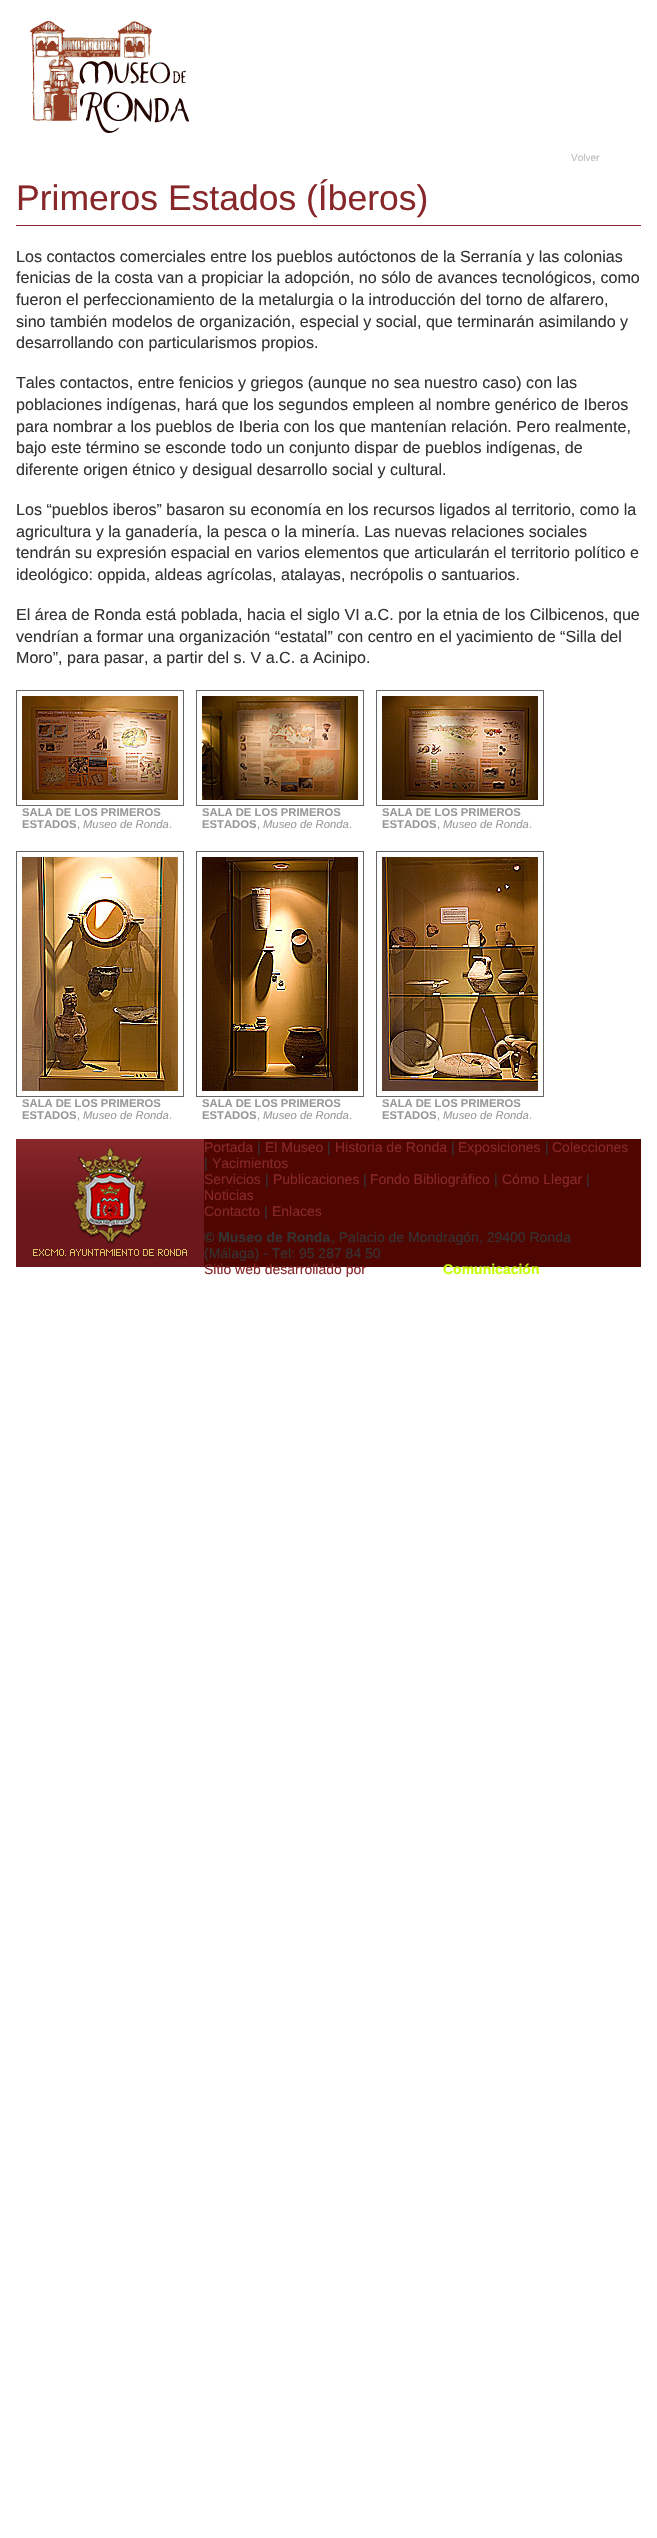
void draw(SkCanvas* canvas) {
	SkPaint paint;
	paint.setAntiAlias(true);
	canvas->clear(0xffffffff);
	canvas->drawImageRect(SkImages::DeferredFromEncodedData(SkData::MakeFromFileName("img1.png")), SkRect::MakeXYWH(30, 21, 159, 112), SkSamplingOptions());
	SkFont f1(fontMgr->matchFamilyStyle("Liberation Sans", SkFontStyle::Normal()), 10);
	f1.setSubpixel(true);
	paint.setColor(0xffbbbbbb);
	canvas->drawString("Volver", 571, 161, f1, paint);
	paint.setColor(0xff88272a);
	canvas->drawRect(SkRect::MakeXYWH(16, 225, 625, 1), paint);
	SkFont f2(fontMgr->matchFamilyStyle("Liberation Sans", SkFontStyle::Normal()), 35.5);
	f2.setSubpixel(true);
	canvas->drawString("Primeros Estados (Íberos)", 16, 210, f2, paint);
	SkFont f3(fontMgr->matchFamilyStyle("Liberation Sans", SkFontStyle::Normal()), 16.1);
	f3.setSubpixel(true);
	paint.setColor(0xff333333);
	canvas->drawString("Los contactos comerciales entre los pueblos autóctonos de la Serranía y las colonias", 16, 262, f3, paint);
	canvas->drawString("fenicias de la costa van a propiciar la adopción, no sólo de avances tecnológicos, como", 16, 283, f3, paint);
	canvas->drawString("fueron el perfeccionamiento de la metalurgia o la introducción del torno de alfarero,", 16, 305, f3, paint);
	canvas->drawString("sino también modelos de organización, especial y social, que terminarán asimilando y", 16, 327, f3, paint);
	canvas->drawString("desarrollando con particularismos propios.", 16, 348, f3, paint);
	canvas->drawString("Tales contactos, entre fenicios y griegos (aunque no sea nuestro caso) con las", 16, 388, f3, paint);
	canvas->drawString("poblaciones indígenas, hará que los segundos empleen al nombre genérico de Iberos", 16, 410, f3, paint);
	canvas->drawString("para nombrar a los pueblos de Iberia con los que mantenían relación. Pero realmente,", 16, 432, f3, paint);
	canvas->drawString("bajo este término se esconde todo un conjunto dispar de pueblos indígenas, de", 16, 453, f3, paint);
	canvas->drawString("diferente origen étnico y desigual desarrollo social y cultural.", 16, 475, f3, paint);
	canvas->drawString("Los “pueblos iberos” basaron su economía en los recursos ligados al territorio, como la", 16, 515, f3, paint);
	canvas->drawString("agricultura y la ganadería, la pesca o la minería. Las nuevas relaciones sociales", 16, 537, f3, paint);
	canvas->drawString("tendrán su expresión espacial en varios elementos que articularán el territorio político e", 16, 558, f3, paint);
	canvas->drawString("ideológico: oppida, aldeas agrícolas, atalayas, necrópolis o santuarios.", 16, 580, f3, paint);
	canvas->drawString("El área de Ronda está poblada, hacia el siglo VI a.C. por la etnia de los Cilbicenos, que", 16, 620, f3, paint);
	canvas->drawString("vendrían a formar una organización “estatal” con centro en el yacimiento de “Silla del", 16, 642, f3, paint);
	canvas->drawString("Moro”, para pasar, a partir del s. V a.C. a Acinipo.", 16, 663, f3, paint);
	paint.setStroke(true);
	paint.setStrokeWidth(1);
	paint.setColor(0xff666666);
	canvas->drawRect(SkRect::MakeXYWH(16.5, 690.5, 167, 115), paint);
	canvas->drawImageRect(SkImages::DeferredFromEncodedData(SkData::MakeFromFileName("img2.png")), SkRect::MakeXYWH(22, 696, 156, 104), SkSamplingOptions());
	SkFont f4(fontMgr->matchFamilyStyle("Liberation Sans", SkFontStyle::Bold()), 11.25);
	f4.setSubpixel(true);
	paint.setStroke(false);
	paint.setColor(0xff999999);
	canvas->drawString("SALA DE LOS PRIMEROS", 22, 816, f4, paint);
	canvas->drawString("ESTADOS", 22, 828, f4, paint);
	SkFont f5(fontMgr->matchFamilyStyle("Liberation Sans", SkFontStyle::Normal()), 11.25);
	f5.setSubpixel(true);
	canvas->drawString(",", 77, 828, f5, paint);
	SkFont f6(fontMgr->matchFamilyStyle("Liberation Sans", SkFontStyle::Italic()), 11.25);
	f6.setSubpixel(true);
	canvas->drawString("Museo de Ronda", 83, 828, f6, paint);
	canvas->drawString(".", 169, 828, f5, paint);
	paint.setStroke(true);
	paint.setColor(0xff666666);
	canvas->drawRect(SkRect::MakeXYWH(196.5, 690.5, 167, 115), paint);
	canvas->drawImageRect(SkImages::DeferredFromEncodedData(SkData::MakeFromFileName("img3.png")), SkRect::MakeXYWH(202, 696, 156, 104), SkSamplingOptions());
	paint.setStroke(false);
	paint.setColor(0xff999999);
	canvas->drawString("SALA DE LOS PRIMEROS", 202, 816, f4, paint);
	canvas->drawString("ESTADOS", 202, 828, f4, paint);
	canvas->drawString(",", 257, 828, f5, paint);
	canvas->drawString("Museo de Ronda", 263, 828, f6, paint);
	canvas->drawString(".", 349, 828, f5, paint);
	paint.setStroke(true);
	paint.setColor(0xff666666);
	canvas->drawRect(SkRect::MakeXYWH(376.5, 690.5, 167, 115), paint);
	canvas->drawImageRect(SkImages::DeferredFromEncodedData(SkData::MakeFromFileName("img4.png")), SkRect::MakeXYWH(382, 696, 156, 104), SkSamplingOptions());
	paint.setStroke(false);
	paint.setColor(0xff999999);
	canvas->drawString("SALA DE LOS PRIMEROS", 382, 816, f4, paint);
	canvas->drawString("ESTADOS", 382, 828, f4, paint);
	canvas->drawString(",", 437, 828, f5, paint);
	canvas->drawString("Museo de Ronda", 443, 828, f6, paint);
	canvas->drawString(".", 529, 828, f5, paint);
	paint.setStroke(true);
	paint.setColor(0xff666666);
	canvas->drawRect(SkRect::MakeXYWH(16.5, 851.5, 167, 245), paint);
	canvas->drawImageRect(SkImages::DeferredFromEncodedData(SkData::MakeFromFileName("img5.png")), SkRect::MakeXYWH(22, 857, 156, 234), SkSamplingOptions());
	paint.setStroke(false);
	paint.setColor(0xff999999);
	canvas->drawString("SALA DE LOS PRIMEROS", 22, 1107, f4, paint);
	canvas->drawString("ESTADOS", 22, 1119, f4, paint);
	canvas->drawString(",", 77, 1119, f5, paint);
	canvas->drawString("Museo de Ronda", 83, 1119, f6, paint);
	canvas->drawString(".", 169, 1119, f5, paint);
	paint.setStroke(true);
	paint.setColor(0xff666666);
	canvas->drawRect(SkRect::MakeXYWH(196.5, 851.5, 167, 245), paint);
	canvas->drawImageRect(SkImages::DeferredFromEncodedData(SkData::MakeFromFileName("img6.png")), SkRect::MakeXYWH(202, 857, 156, 234), SkSamplingOptions());
	paint.setStroke(false);
	paint.setColor(0xff999999);
	canvas->drawString("SALA DE LOS PRIMEROS", 202, 1107, f4, paint);
	canvas->drawString("ESTADOS", 202, 1119, f4, paint);
	canvas->drawString(",", 257, 1119, f5, paint);
	canvas->drawString("Museo de Ronda", 263, 1119, f6, paint);
	canvas->drawString(".", 349, 1119, f5, paint);
	paint.setStroke(true);
	paint.setColor(0xff666666);
	canvas->drawRect(SkRect::MakeXYWH(376.5, 851.5, 167, 245), paint);
	canvas->drawImageRect(SkImages::DeferredFromEncodedData(SkData::MakeFromFileName("img7.png")), SkRect::MakeXYWH(382, 857, 156, 234), SkSamplingOptions());
	paint.setStroke(false);
	paint.setColor(0xff999999);
	canvas->drawString("SALA DE LOS PRIMEROS", 382, 1107, f4, paint);
	canvas->drawString("ESTADOS", 382, 1119, f4, paint);
	canvas->drawString(",", 437, 1119, f5, paint);
	canvas->drawString("Museo de Ronda", 443, 1119, f6, paint);
	canvas->drawString(".", 529, 1119, f5, paint);
	paint.setColor(0xff4f0600);
	canvas->drawRect(SkRect::MakeXYWH(204, 1139, 437, 128), paint);
	canvas->drawImageRect(SkImages::DeferredFromEncodedData(SkData::MakeFromFileName("img8.png")), SkRect::MakeXYWH(16, 1139, 188, 128), SkSamplingOptions());
	SkFont f7(fontMgr->matchFamilyStyle("Liberation Sans", SkFontStyle::Normal()), 14);
	f7.setSubpixel(true);
	paint.setColor(0xff88272a);
	canvas->drawString("Portada", 204, 1152, f7, paint);
	paint.setColor(0xff333333);
	canvas->drawString("|", 257, 1152, f7, paint);
	paint.setColor(0xff88272a);
	canvas->drawString("El Museo", 265, 1152, f7, paint);
	paint.setColor(0xff333333);
	canvas->drawString("|", 327, 1152, f7, paint);
	paint.setColor(0xff88272a);
	canvas->drawString("Historia de Ronda", 335, 1152, f7, paint);
	paint.setColor(0xff333333);
	canvas->drawString("|", 451, 1152, f7, paint);
	paint.setColor(0xff88272a);
	canvas->drawString("Exposiciones", 458, 1152, f7, paint);
	paint.setColor(0xff333333);
	canvas->drawString("|", 545, 1152, f7, paint);
	paint.setColor(0xff88272a);
	canvas->drawString("Colecciones", 552, 1152, f7, paint);
	paint.setColor(0xff333333);
	canvas->drawString("|", 204, 1168, f7, paint);
	paint.setColor(0xff88272a);
	canvas->drawString("Yacimientos", 212, 1168, f7, paint);
	canvas->drawString("Servicios", 204, 1184, f7, paint);
	paint.setColor(0xff333333);
	canvas->drawString("|", 265, 1184, f7, paint);
	paint.setColor(0xff88272a);
	canvas->drawString("Publicaciones", 273, 1184, f7, paint);
	paint.setColor(0xff333333);
	canvas->drawString("|", 363, 1184, f7, paint);
	paint.setColor(0xff88272a);
	canvas->drawString("Fondo Bibliográfico", 370, 1184, f7, paint);
	paint.setColor(0xff333333);
	canvas->drawString("|", 494, 1184, f7, paint);
	paint.setColor(0xff88272a);
	canvas->drawString("Cómo Llegar", 502, 1184, f7, paint);
	paint.setColor(0xff333333);
	canvas->drawString("|", 586, 1184, f7, paint);
	paint.setColor(0xff88272a);
	canvas->drawString("Noticias", 204, 1200, f7, paint);
	canvas->drawString("Contacto", 204, 1216, f7, paint);
	paint.setColor(0xff333333);
	canvas->drawString("|", 264, 1216, f7, paint);
	paint.setColor(0xff88272a);
	canvas->drawString("Enlaces", 272, 1216, f7, paint);
	SkFont f8(fontMgr->matchFamilyStyle("Liberation Sans", SkFontStyle::Bold()), 14);
	f8.setSubpixel(true);
	paint.setColor(0xff333333);
	canvas->drawString("© Museo de Ronda", 204, 1242, f8, paint);
	canvas->drawString(", Palacio de Mondragón, 29400 Ronda", 331, 1242, f7, paint);
	canvas->drawString("(Málaga) - Tel: 95 287 84 50", 204, 1258, f7, paint);
	paint.setColor(0xff88272a);
	canvas->drawString("Sitio web desarrollado por", 204, 1274, f7, paint);
	paint.setColor(0xffc6fe05);
	canvas->drawString("Comunicación", 443, 1274, f8, paint);
}
